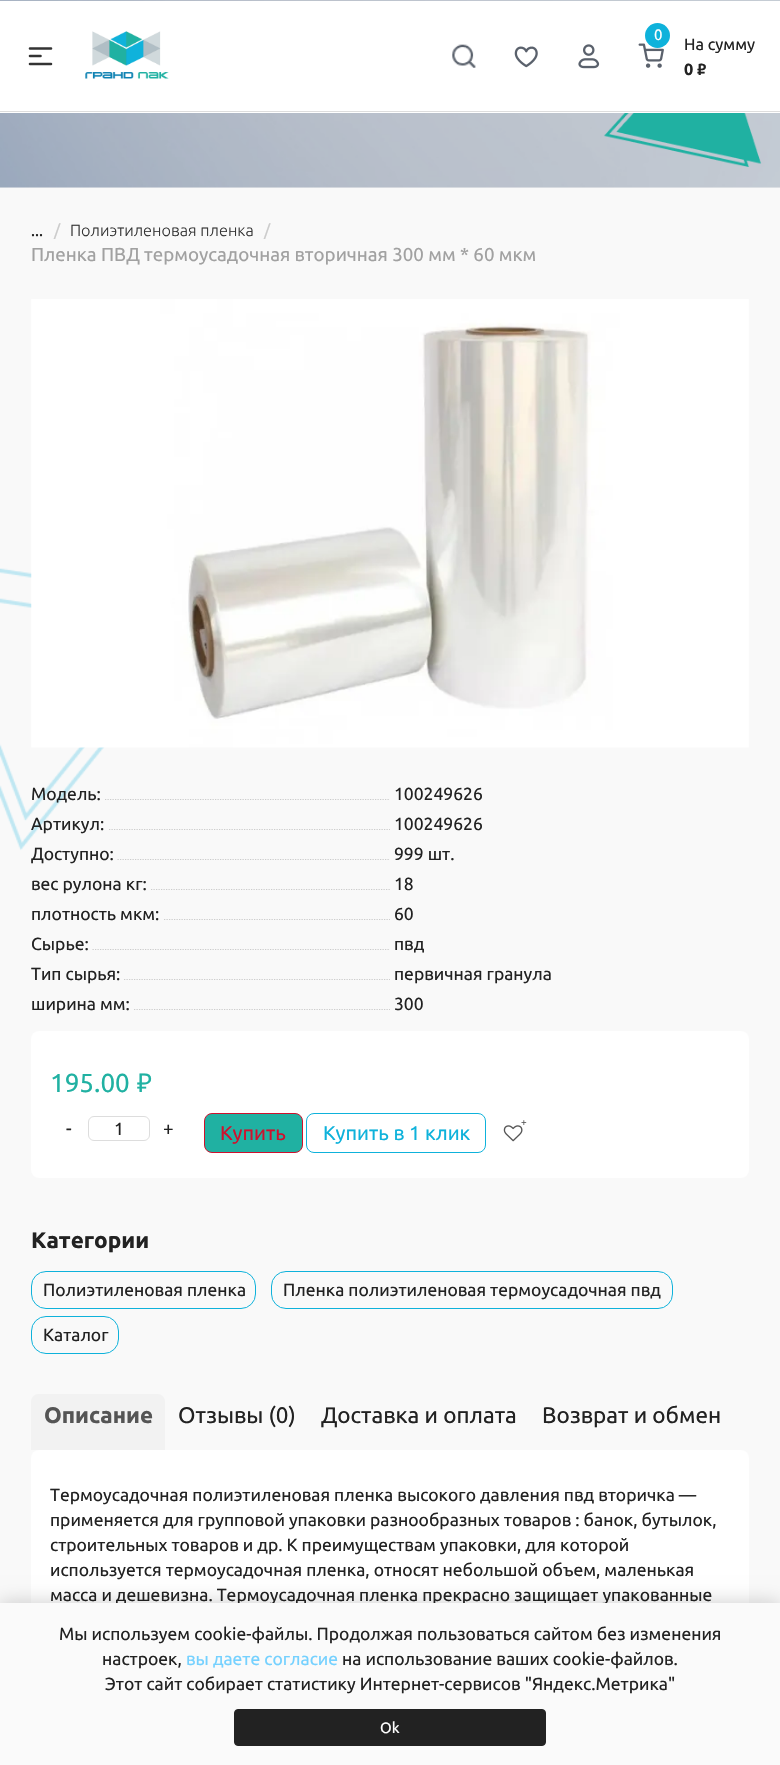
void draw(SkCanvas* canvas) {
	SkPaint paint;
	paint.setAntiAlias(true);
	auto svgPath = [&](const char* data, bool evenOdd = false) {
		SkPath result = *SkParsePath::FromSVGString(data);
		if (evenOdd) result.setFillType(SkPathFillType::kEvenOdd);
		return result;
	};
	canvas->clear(0xffffffff);
	canvas->drawImageRect(SkImages::DeferredFromEncodedData(SkData::MakeFromFileName("img1.png")), SkRect::MakeXYWH(0, 188, 780, 1415), SkSamplingOptions());
	paint.setColor(0xfff2f2f2);
	canvas->drawRect(SkRect::MakeXYWH(0, 187, 780, 1), paint);
	canvas->drawImageRect(SkImages::DeferredFromEncodedData(SkData::MakeFromFileName("img2.png")), SkRect::MakeXYWH(0, 0, 780, 188), SkSamplingOptions());
	paint.setColor(0xffffffff);
	canvas->drawRect(SkRect::MakeXYWH(0, 1, 780, 112), paint);
	paint.setColor(0xffdddddd);
	canvas->drawRect(SkRect::MakeXYWH(0, 111, 780, 1), paint);
	paint.setStroke(true);
	paint.setStrokeWidth(2.6);
	paint.setStrokeCap(SkPaint::kRound_Cap);
	paint.setStrokeJoin(SkPaint::kRound_Join);
	paint.setColor(0xff333333);
	canvas->drawPath(svgPath("M30 48.5H51M30 56H40.5M30 64H51"), paint);
	canvas->drawImageRect(SkImages::DeferredFromEncodedData(SkData::MakeFromFileName("img3.png")), SkRect::MakeXYWH(85, 31, 84, 48), SkSamplingOptions());
	canvas->drawImageRect(SkImages::DeferredFromEncodedData(SkData::MakeFromFileName("img4.png")), SkRect::MakeXYWH(452, 44, 24, 24), SkSamplingOptions());
	canvas->drawImageRect(SkImages::DeferredFromEncodedData(SkData::MakeFromFileName("img5.png")), SkRect::MakeXYWH(514, 46, 24, 22), SkSamplingOptions());
	canvas->drawImageRect(SkImages::DeferredFromEncodedData(SkData::MakeFromFileName("img6.png")), SkRect::MakeXYWH(578, 44, 22, 25), SkSamplingOptions());
	canvas->drawImageRect(SkImages::DeferredFromEncodedData(SkData::MakeFromFileName("img7.png")), SkRect::MakeXYWH(638, 43, 26, 25), SkSamplingOptions());
	paint.setStroke(false);
	paint.setColor(0xff0eb2db);
	canvas->drawCircle(657.5, 35.5, 12.5, paint);
	SkFont f1(fontMgr->matchFamilyStyle("Ubuntu", SkFontStyle::Normal()), 15);
	f1.setSubpixel(true);
	paint.setColor(0xffffffff);
	canvas->drawString("0", 654, 40, f1, paint);
	SkFont f2(fontMgr->matchFamilyStyle("Ubuntu", SkFontStyle::Normal()), 16.25);
	f2.setSubpixel(true);
	paint.setColor(0xff222222);
	canvas->drawString("На сумму", 684, 50, f2, paint);
	SkFont f3(fontMgr->matchFamilyStyle("Ubuntu", SkFontStyle::Bold()), 16.25);
	f3.setSubpixel(true);
	canvas->drawString("0", 684, 75, f3, paint);
	SkFont f4(fontMgr->matchFamilyStyle("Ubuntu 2", SkFontStyle::Bold()), 16.25);
	f4.setSubpixel(true);
	canvas->drawString("₽", 697, 75, f4, paint);
	paint.setColor(0xffcccccc);
	canvas->drawString("/", 264, 236, f2, paint);
	SkFont f5(fontMgr->matchFamilyStyle("Ubuntu", SkFontStyle::Normal()), 18.75);
	f5.setSubpixel(true);
	paint.setColor(0xffa1a1a1);
	canvas->drawString("Пленка ПВД термоусадочная вторичная 300 мм * 60 мкм", 31, 261, f5, paint);
	paint.setColor(0xff222222);
	canvas->drawString("...", 31, 236, f2, paint);
	paint.setColor(0xffcccccc);
	canvas->drawString("/", 54, 236, f2, paint);
	SkFont f6(fontMgr->matchFamilyStyle("Ubuntu", SkFontStyle(300, SkFontStyle::kNormal_Width, SkFontStyle::kUpright_Slant)), 16.25);
	f6.setSubpixel(true);
	paint.setColor(0xff333333);
	canvas->drawString("Полиэтиленовая пленка", 70, 236, f6, paint);
	canvas->drawImageRect(SkImages::DeferredFromEncodedData(SkData::MakeFromFileName("img8.png")), SkRect::MakeXYWH(31, 299, 718, 449), SkSamplingOptions());
	SkFont f7(fontMgr->matchFamilyStyle("Ubuntu", SkFontStyle::Normal()), 17.5);
	f7.setSubpixel(true);
	paint.setColor(0xff222222);
	canvas->drawString("Модель:", 31, 800, f7, paint);
	canvas->save();
	canvas->clipRect(SkRect::MakeXYWH(31, 779, 359, 30));
	paint.setStroke(true);
	paint.setStrokeWidth(1.2);
	paint.setStrokeCap(SkPaint::kButt_Cap);
	paint.setStrokeJoin(SkPaint::kMiter_Join);
	paint.setColor(0xffcccccc);
	paint.setPathEffect(SkDashPathEffect::Make({{1.25f, 1.25f}}, 0));
	canvas->drawPath(svgPath("M105 799.5H464"), paint);
	paint.setPathEffect(nullptr);
	canvas->restore();
	paint.setStroke(false);
	paint.setColor(0xff222222);
	canvas->drawString("100249626", 394, 800, f7, paint);
	canvas->drawString("Артикул:", 31, 830, f7, paint);
	canvas->save();
	canvas->clipRect(SkRect::MakeXYWH(31, 809, 359, 30));
	paint.setStroke(true);
	paint.setColor(0xffcccccc);
	paint.setPathEffect(SkDashPathEffect::Make({{1.25f, 1.25f}}, 0));
	canvas->drawPath(svgPath("M109 829.5H467.5"), paint);
	paint.setPathEffect(nullptr);
	canvas->restore();
	paint.setStroke(false);
	paint.setColor(0xff222222);
	canvas->drawString("100249626", 394, 830, f7, paint);
	canvas->drawString("Доступно:", 31, 860, f7, paint);
	canvas->save();
	canvas->clipRect(SkRect::MakeXYWH(31, 839, 359, 30));
	paint.setStroke(true);
	paint.setColor(0xffcccccc);
	paint.setPathEffect(SkDashPathEffect::Make({{1.25f, 1.25f}}, 0));
	canvas->drawPath(svgPath("M117.5 859.5H476"), paint);
	paint.setPathEffect(nullptr);
	canvas->restore();
	paint.setStroke(false);
	paint.setColor(0xff222222);
	canvas->drawString("999 шт.", 394, 860, f7, paint);
	canvas->drawString("вес рулона кг:", 31, 890, f7, paint);
	canvas->save();
	canvas->clipRect(SkRect::MakeXYWH(31, 869, 359, 30));
	paint.setStroke(true);
	paint.setColor(0xffcccccc);
	paint.setPathEffect(SkDashPathEffect::Make({{1.25f, 1.25f}}, 0));
	canvas->drawPath(svgPath("M151 889.5H510"), paint);
	paint.setPathEffect(nullptr);
	canvas->restore();
	paint.setStroke(false);
	paint.setColor(0xff222222);
	canvas->drawString("18", 394, 890, f7, paint);
	canvas->drawString("плотность мкм:", 31, 920, f7, paint);
	canvas->save();
	canvas->clipRect(SkRect::MakeXYWH(31, 899, 359, 30));
	paint.setStroke(true);
	paint.setColor(0xffcccccc);
	paint.setPathEffect(SkDashPathEffect::Make({{1.25f, 1.25f}}, 0));
	canvas->drawPath(svgPath("M164 919.5H522.5"), paint);
	paint.setPathEffect(nullptr);
	canvas->restore();
	paint.setStroke(false);
	paint.setColor(0xff222222);
	canvas->drawString("60", 394, 920, f7, paint);
	canvas->drawString("Сырье:", 31, 950, f7, paint);
	canvas->save();
	canvas->clipRect(SkRect::MakeXYWH(31, 929, 359, 30));
	paint.setStroke(true);
	paint.setColor(0xffcccccc);
	paint.setPathEffect(SkDashPathEffect::Make({{1.25f, 1.25f}}, 0));
	canvas->drawPath(svgPath("M92.5 949.5H451"), paint);
	paint.setPathEffect(nullptr);
	canvas->restore();
	paint.setStroke(false);
	paint.setColor(0xff222222);
	canvas->drawString("пвд", 394, 950, f7, paint);
	canvas->drawString("Тип сырья:", 31, 980, f7, paint);
	canvas->save();
	canvas->clipRect(SkRect::MakeXYWH(31, 959, 359, 30));
	paint.setStroke(true);
	paint.setColor(0xffcccccc);
	paint.setPathEffect(SkDashPathEffect::Make({{1.25f, 1.25f}}, 0));
	canvas->drawPath(svgPath("M124 979.5H482.5"), paint);
	paint.setPathEffect(nullptr);
	canvas->restore();
	paint.setStroke(false);
	paint.setColor(0xff222222);
	canvas->drawString("первичная гранула", 394, 980, f7, paint);
	canvas->drawString("ширина мм:", 31, 1010, f7, paint);
	canvas->save();
	canvas->clipRect(SkRect::MakeXYWH(31, 989, 359, 30));
	paint.setStroke(true);
	paint.setColor(0xffcccccc);
	paint.setPathEffect(SkDashPathEffect::Make({{1.25f, 1.25f}}, 0));
	canvas->drawPath(svgPath("M134 1009.5H492.5"), paint);
	paint.setPathEffect(nullptr);
	canvas->restore();
	paint.setStroke(false);
	paint.setColor(0xff222222);
	canvas->drawString("300", 394, 1010, f7, paint);
	paint.setColor(0xffffffff);
	canvas->drawRoundRect(SkRect::MakeXYWH(31, 1031, 718, 147), 8, 8, paint);
	SkFont f8(fontMgr->matchFamilyStyle("Ubuntu", SkFontStyle::Normal()), 26);
	f8.setSubpixel(true);
	paint.setColor(0xff20b1a2);
	canvas->drawString("195.00", 50, 1092, f8, paint);
	SkFont f9(fontMgr->matchFamilyStyle("Noto Sans", SkFontStyle::Normal()), 26);
	f9.setSubpixel(true);
	canvas->drawString("₽", 137, 1092, f9, paint);
	paint.setStroke(true);
	paint.setStrokeWidth(1);
	paint.setColor(0xffdddddd);
	canvas->drawRoundRect(SkRect::MakeXYWH(88.5, 1116.5, 61, 24), 5.5, 5.5, paint);
	paint.setStroke(false);
	paint.setColor(0xff222222);
	canvas->drawString("1", 114, 1135, f7, paint);
	canvas->drawString("-", 66, 1135, f5, paint);
	canvas->drawString("+", 163, 1135, f5, paint);
	paint.setColor(0xff20b1a2);
	canvas->drawRoundRect(SkRect::MakeXYWH(204.5, 1113.5, 98, 39), 7.5, 7.5, paint);
	paint.setStroke(true);
	paint.setColor(0xffcf102d);
	canvas->drawRoundRect(SkRect::MakeXYWH(204.5, 1113.5, 98, 39), 7.5, 7.5, paint);
	SkFont f10(fontMgr->matchFamilyStyle("Ubuntu", SkFontStyle::Normal()), 20);
	f10.setSubpixel(true);
	paint.setStroke(false);
	canvas->drawString("Купить", 220, 1140, f10, paint);
	paint.setStroke(true);
	paint.setColor(0xff0eb2db);
	canvas->drawRoundRect(SkRect::MakeXYWH(306.5, 1113.5, 179, 39), 7.5, 7.5, paint);
	paint.setStroke(false);
	canvas->drawString("Купить в 1 клик", 323, 1140, f10, paint);
	canvas->drawImageRect(SkImages::DeferredFromEncodedData(SkData::MakeFromFileName("img9.png")), SkRect::MakeXYWH(503, 1125, 20, 17), SkSamplingOptions());
	SkFont f11(fontMgr->matchFamilyStyle("Liberation Serif", SkFontStyle::Bold()), 10);
	f11.setSubpixel(true);
	paint.setColor(0xff555555);
	canvas->drawString("+", 521, 1126, f11, paint);
	SkFont f12(fontMgr->matchFamilyStyle("Ubuntu", SkFontStyle::Bold()), 22.5);
	f12.setSubpixel(true);
	paint.setColor(0xff222222);
	canvas->drawString("Категории", 31, 1248, f12, paint);
	paint.setStroke(true);
	paint.setColor(0xff0eb2db);
	canvas->drawRoundRect(SkRect::MakeXYWH(31.5, 1271.5, 224, 37), 14.5, 14.5, paint);
	paint.setStroke(false);
	paint.setColor(0xff222222);
	canvas->drawString("Полиэтиленовая пленка", 43, 1296, f7, paint);
	paint.setStroke(true);
	paint.setColor(0xff0eb2db);
	canvas->drawRoundRect(SkRect::MakeXYWH(271.5, 1271.5, 401, 37), 14.5, 14.5, paint);
	paint.setStroke(false);
	paint.setColor(0xff222222);
	canvas->drawString("Пленка полиэтиленовая термоусадочная пвд", 283, 1296, f7, paint);
	paint.setStroke(true);
	paint.setColor(0xff0eb2db);
	canvas->drawRoundRect(SkRect::MakeXYWH(31.5, 1316.5, 87, 37), 14.5, 14.5, paint);
	paint.setStroke(false);
	paint.setColor(0xff222222);
	canvas->drawString("Каталог", 43, 1341, f7, paint);
	paint.setColor(0xfff2f2f2);
	canvas->drawPath(svgPath("M39 1394H157C161.5 1394 165 1397.5 165 1402V1450H31V1402C31 1397.5 34.5 1394 39 1394Z"), paint);
	paint.setColor(0xff555555);
	canvas->drawString("Описание", 44, 1423, f12, paint);
	SkFont f13(fontMgr->matchFamilyStyle("Ubuntu", SkFontStyle::Normal()), 22.5);
	f13.setSubpixel(true);
	paint.setColor(0xff222222);
	canvas->drawString("Отзывы (0)", 178, 1423, f13, paint);
	canvas->drawString("Доставка и оплата", 321, 1423, f13, paint);
	canvas->drawString("Возврат и обмен", 542, 1423, f13, paint);
	paint.setColor(0xffffffff);
	canvas->drawRoundRect(SkRect::MakeXYWH(31, 1450, 718, 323), 8, 8, paint);
	paint.setColor(0xff222222);
	canvas->drawString("Термоусадочная полиэтиленовая пленка высокого давления пвд вторичка —", 50, 1501, f7, paint);
	canvas->drawString("применяется для групповой упаковки разнообразных товаров : банок, бутылок,", 50, 1526, f7, paint);
	canvas->drawString("строительных товаров и др. К преимуществам упаковки, для которой", 50, 1551, f7, paint);
	canvas->drawString("используется термоусадочная пленка, относят небольшой объем, маленькая", 50, 1576, f7, paint);
	canvas->drawString("масса и дешевизна. Термоусадочная пленка прекрасно защищает упакованные", 50, 1601, f7, paint);
	paint.setColor(0x33000000);
	paint.setMaskFilter(SkMaskFilter::MakeBlur(kNormal_SkBlurStyle, 9.5));
	canvas->drawRect(SkRect::MakeXYWH(0, 1603, 780, 162), paint);
	paint.setMaskFilter(nullptr);
	paint.setColor(0xfffafafa);
	canvas->drawRect(SkRect::MakeXYWH(0, 1603, 780, 162), paint);
	paint.setColor(0xff222222);
	canvas->drawString("Мы используем cookie-файлы. Продолжая пользоваться сайтом без изменения", 59, 1640, f7, paint);
	canvas->drawString("настроек,", 102, 1665, f7, paint);
	paint.setColor(0xff75d1ff);
	canvas->drawString("вы даете согласие", 186, 1665, f7, paint);
	paint.setColor(0xff222222);
	canvas->drawString("на использование ваших cookie-файлов.", 342, 1665, f7, paint);
	canvas->drawString("Этот сайт собирает статистику Интернет-сервисов \"Яндекс.Метрика\"", 105, 1690, f7, paint);
	canvas->drawRoundRect(SkRect::MakeXYWH(234.5, 1709.5, 311, 36), 3.5, 3.5, paint);
	paint.setStroke(true);
	canvas->drawRoundRect(SkRect::MakeXYWH(234.5, 1709.5, 311, 36), 3.5, 3.5, paint);
	paint.setStroke(false);
	paint.setColor(0xffffffff);
	canvas->drawString("Ok", 380, 1733, f1, paint);
}
